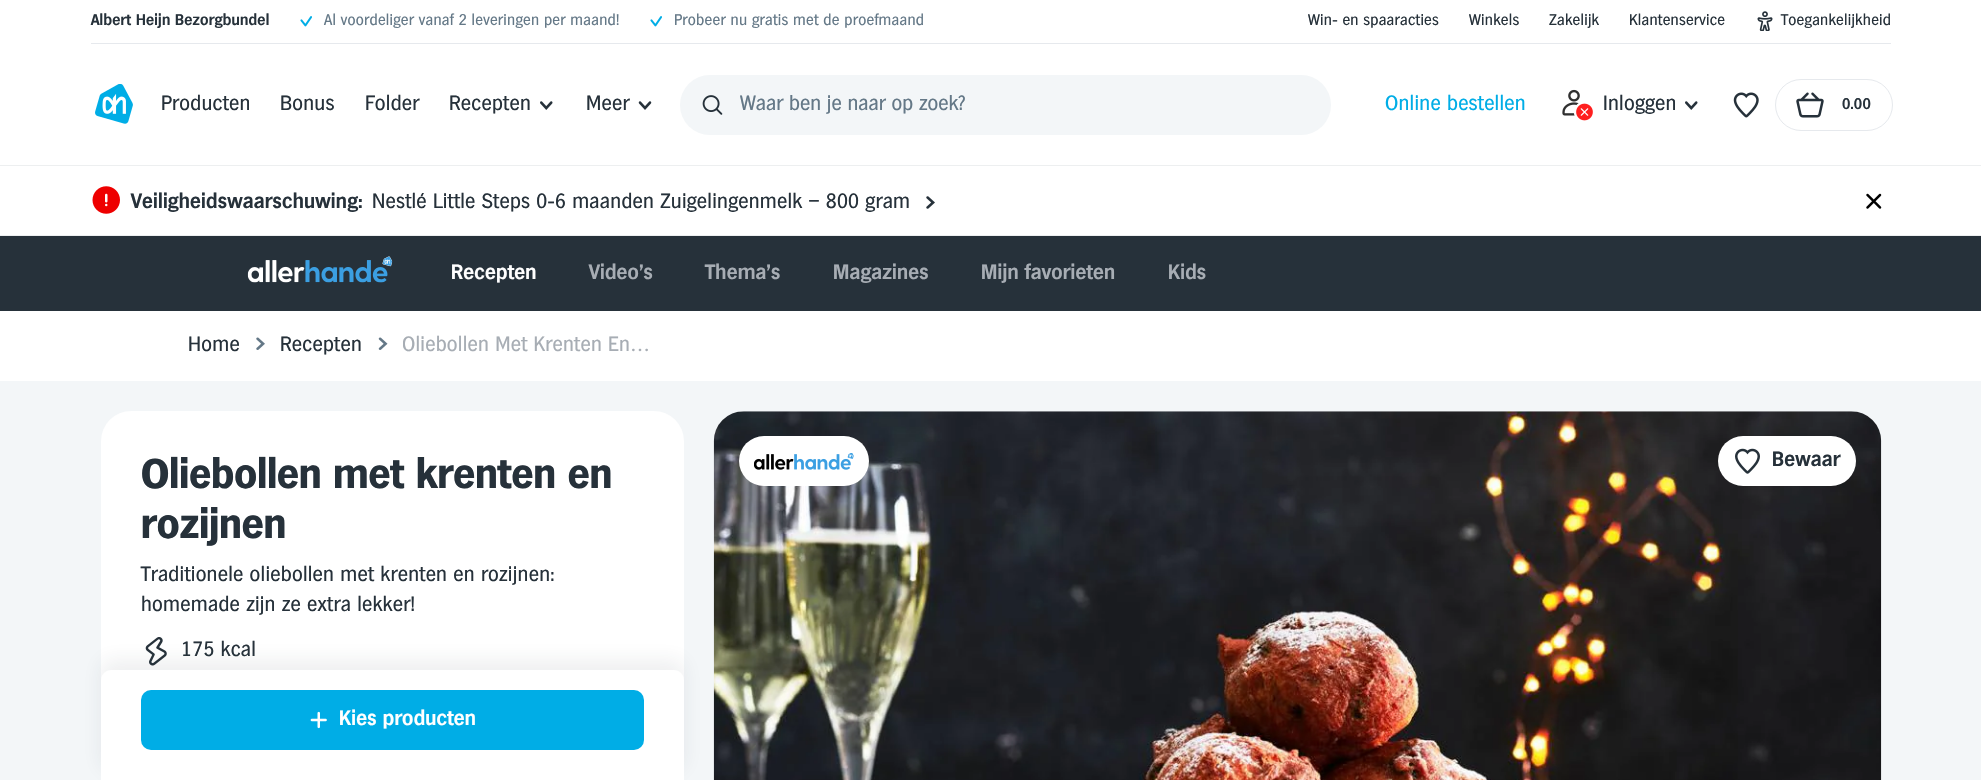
void draw(SkCanvas* canvas) {
	SkPaint paint;
	paint.setAntiAlias(true);
	auto spacedText = [&](const char* s, float x, float y, const SkFont& font, const SkPaint& ink, float letter, float word) {
		std::vector<SkGlyphID> glyphs(font.countText(s, strlen(s), SkTextEncoding::kUTF8));
		std::vector<float> xs(glyphs.size());
		font.textToGlyphs(s, strlen(s), SkTextEncoding::kUTF8, glyphs);
		font.getXPos(glyphs, xs, x);
		float extra = 0;
		for (size_t i = 0; i < glyphs.size(); i++) {
			xs[i] += extra;
			extra += letter + word * (glyphs[i] == font.unicharToGlyph(' '));
		}
		canvas->drawTextBlob(SkTextBlob::MakeFromPosHGlyphs(glyphs, xs, y, font), 0, 0, ink);
	};
	auto svgPath = [&](const char* data, bool evenOdd = false) {
		SkPath result = *SkParsePath::FromSVGString(data);
		if (evenOdd) result.setFillType(SkPathFillType::kEvenOdd);
		return result;
	};
	canvas->clear(0xffffffff);
	paint.setColor(0xffe6e9ed);
	canvas->drawRect(SkRect::MakeXYWH(91, 43, 1800, 1), paint);
	SkFont f1(fontMgr->matchFamilyStyle("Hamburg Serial", SkFontStyle::Bold()), 15);
	f1.setSubpixel(true);
	paint.setColor(0xff26313a);
	spacedText("Albert Heijn Bezorgbundel", 91, 25, f1, paint, 0.25, 0);
	canvas->drawImageRect(SkImages::DeferredFromEncodedData(SkData::MakeFromFileName("img1.png")), SkRect::MakeXYWH(300, 16, 12, 11), SkSamplingOptions());
	SkFont f2(fontMgr->matchFamilyStyle("Hamburg Serial", SkFontStyle::Normal()), 15);
	f2.setSubpixel(true);
	paint.setColor(0xff647887);
	spacedText("Al voordeliger vanaf 2 leveringen per maand!", 324, 25, f2, paint, 0.25, 0);
	canvas->drawImageRect(SkImages::DeferredFromEncodedData(SkData::MakeFromFileName("img1.png")), SkRect::MakeXYWH(650, 16, 12, 11), SkSamplingOptions());
	spacedText("Probeer nu gratis met de proefmaand", 674, 25, f2, paint, 0.25, 0);
	paint.setColor(0xff26313a);
	spacedText("Win- en spaaracties", 1308, 25, f2, paint, 0.25, 0);
	spacedText("Winkels", 1469, 25, f2, paint, 0.25, 0);
	spacedText("Zakelijk", 1549, 25, f2, paint, 0.25, 0);
	spacedText("Klantenservice", 1629, 25, f2, paint, 0.25, 0);
	canvas->drawImageRect(SkImages::DeferredFromEncodedData(SkData::MakeFromFileName("img2.png")), SkRect::MakeXYWH(1757, 11, 16, 20), SkSamplingOptions());
	spacedText("Toegankelijkheid", 1781, 25, f2, paint, 0.25, 0);
	canvas->drawImageRect(SkImages::DeferredFromEncodedData(SkData::MakeFromFileName("img3.png")), SkRect::MakeXYWH(95, 84, 38, 40), SkSamplingOptions());
	SkFont f3(fontMgr->matchFamilyStyle("Hamburg Serial", SkFontStyle::Normal()), 20);
	f3.setSubpixel(true);
	spacedText("Producten", 161, 110, f3, paint, 0.25, 0);
	spacedText("Bonus", 280, 110, f3, paint, 0.25, 0);
	spacedText("Folder", 365, 110, f3, paint, 0.25, 0);
	spacedText("Recepten", 449, 110, f3, paint, 0.25, 0);
	canvas->drawImageRect(SkImages::DeferredFromEncodedData(SkData::MakeFromFileName("img4.png")), SkRect::MakeXYWH(540, 101, 13, 9), SkSamplingOptions());
	spacedText("Meer", 586, 110, f3, paint, 0.25, 0);
	canvas->drawImageRect(SkImages::DeferredFromEncodedData(SkData::MakeFromFileName("img5.png")), SkRect::MakeXYWH(638, 101, 14, 9), SkSamplingOptions());
	paint.setColor(0xfff3f6f8);
	canvas->drawRoundRect(SkRect::MakeXYWH(680, 75, 651, 60), 30, 30, paint);
	canvas->drawImageRect(SkImages::DeferredFromEncodedData(SkData::MakeFromFileName("img6.png")), SkRect::MakeXYWH(702, 95, 21, 20), SkSamplingOptions());
	canvas->save();
	canvas->clipRect(SkRect::MakeXYWH(740, 95, 561, 20));
	paint.setColor(0xff647887);
	canvas->drawString("Waar ben je naar op zoek?", 740, 110, f3, paint);
	canvas->restore();
	paint.setColor(0xff00ade6);
	spacedText("Online bestellen", 1385, 110, f3, paint, 0.25, 0);
	canvas->drawImageRect(SkImages::DeferredFromEncodedData(SkData::MakeFromFileName("img7.png")), SkRect::MakeXYWH(1562, 89, 31, 32), SkSamplingOptions());
	paint.setColor(0xff26313a);
	spacedText("Inloggen", 1603, 110, f3, paint, 0.25, 0);
	canvas->drawImageRect(SkImages::DeferredFromEncodedData(SkData::MakeFromFileName("img4.png")), SkRect::MakeXYWH(1685, 101, 13, 9), SkSamplingOptions());
	canvas->drawImageRect(SkImages::DeferredFromEncodedData(SkData::MakeFromFileName("img8.png")), SkRect::MakeXYWH(1733, 92, 26, 26), SkSamplingOptions());
	paint.setStroke(true);
	paint.setStrokeWidth(1);
	paint.setColor(0xffe6e9ed);
	canvas->drawRoundRect(SkRect::MakeXYWH(1775.5, 79.5, 117, 51), 25.5, 25.5, paint);
	canvas->drawImageRect(SkImages::DeferredFromEncodedData(SkData::MakeFromFileName("img9.png")), SkRect::MakeXYWH(1796, 92, 28, 26), SkSamplingOptions());
	paint.setStroke(false);
	paint.setColor(0xff26313a);
	spacedText("0.00", 1842, 109, f1, paint, 0.25, 0);
	paint.setColor(0xffedeff0);
	canvas->drawRect(SkRect::MakeXYWH(0, 165, 1981, 1), paint);
	canvas->drawImageRect(SkImages::DeferredFromEncodedData(SkData::MakeFromFileName("img10.png")), SkRect::MakeXYWH(92, 186, 28, 28), SkSamplingOptions());
	SkFont f4(fontMgr->matchFamilyStyle("Hamburg Serial", SkFontStyle::Bold()), 20);
	f4.setSubpixel(true);
	paint.setColor(0xff26313a);
	spacedText("Veiligheidswaarschuwing:", 131, 208, f4, paint, 0.25, 0);
	spacedText("Nestlé Little Steps 0-6 maanden Zuigelingenmelk – 800 gram", 372, 208, f3, paint, 0.25, 0);
	canvas->drawImageRect(SkImages::DeferredFromEncodedData(SkData::MakeFromFileName("img11.png")), SkRect::MakeXYWH(926, 196, 9, 13), SkSamplingOptions());
	canvas->drawImageRect(SkImages::DeferredFromEncodedData(SkData::MakeFromFileName("img12.png")), SkRect::MakeXYWH(1866, 193, 16, 16), SkSamplingOptions());
	paint.setColor(0xffedeff0);
	canvas->drawRect(SkRect::MakeXYWH(0, 235, 1981, 1), paint);
	paint.setColor(0xff26313a);
	canvas->drawRect(SkRect::MakeXYWH(0, 236, 1981, 75), paint);
	canvas->drawImageRect(SkImages::DeferredFromEncodedData(SkData::MakeFromFileName("img13.png")), SkRect::MakeXYWH(247, 256, 146, 27), SkSamplingOptions());
	paint.setColor(0xffffffff);
	spacedText("Recepten", 451, 279, f4, paint, 0.25, 0);
	paint.setColor(0xffa7adb4);
	spacedText("Video's", 589, 279, f4, paint, 0.25, 0);
	spacedText("Thema's", 705, 279, f4, paint, 0.25, 0);
	spacedText("Magazines", 833, 279, f4, paint, 0.25, 0);
	spacedText("Mijn favorieten", 981, 279, f4, paint, 0.25, 0);
	spacedText("Kids", 1168, 279, f4, paint, 0.25, 0);
	paint.setColor(0xff26313a);
	spacedText("Home", 188, 351, f3, paint, 0.25, 0);
	canvas->drawImageRect(SkImages::DeferredFromEncodedData(SkData::MakeFromFileName("img14.png")), SkRect::MakeXYWH(256, 337, 9, 13), SkSamplingOptions());
	spacedText("Recepten", 280, 351, f3, paint, 0.25, 0);
	canvas->drawImageRect(SkImages::DeferredFromEncodedData(SkData::MakeFromFileName("img15.png")), SkRect::MakeXYWH(378, 337, 10, 13), SkSamplingOptions());
	canvas->save();
	canvas->clipRect(SkRect::MakeXYWH(403, 331, 250, 30));
	paint.setColor(0xffa7adb4);
	spacedText("Oliebollen Met Krenten En…", 402, 351, f3, paint, 0.25, 0);
	canvas->restore();
	paint.setColor(0xfff3f6f8);
	canvas->drawRect(SkRect::MakeXYWH(0, 381, 1981, 399), paint);
	paint.setColor(0xffffffff);
	canvas->drawRoundRect(SkRect::MakeXYWH(101, 411, 583, 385), 30, 30, paint);
	SkFont f5(fontMgr->matchFamilyStyle("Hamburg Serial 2", SkFontStyle::Bold()), 40);
	f5.setSubpixel(true);
	paint.setColor(0xff26313a);
	spacedText("Oliebollen met krenten en", 141, 488, f5, paint, 0.1, 0);
	spacedText("rozijnen", 141, 538, f5, paint, 0.1, 0);
	spacedText("Traditionele oliebollen met krenten en rozijnen:", 141, 581, f3, paint, 0.25, 0);
	spacedText("homemade zijn ze extra lekker!", 141, 611, f3, paint, 0.25, 0);
	canvas->drawImageRect(SkImages::DeferredFromEncodedData(SkData::MakeFromFileName("img16.png")), SkRect::MakeXYWH(145, 637, 22, 29), SkSamplingOptions());
	spacedText("175 kcal", 181, 656, f3, paint, 0.25, 0);
	canvas->drawImageRect(SkImages::DeferredFromEncodedData(SkData::MakeFromFileName("img18.png")), SkRect::MakeXYWH(713, 411, 1169, 369), SkSamplingOptions());
	paint.setColor(0x1426313a);
	paint.setMaskFilter(SkMaskFilter::MakeBlur(kNormal_SkBlurStyle, 10));
	canvas->drawRoundRect(SkRect::MakeXYWH(101, 660, 583, 110), 10, 10, paint);
	paint.setMaskFilter(nullptr);
	paint.setColor(0xffffffff);
	canvas->drawPath(svgPath("M111 670H674C679.5 670 684 674.5 684 680V780H101V680C101 674.5 105.5 670 111 670Z"), paint);
	paint.setColor(0xff00ade6);
	canvas->drawRoundRect(SkRect::MakeXYWH(141, 690, 503, 60), 10, 10, paint);
	canvas->drawImageRect(SkImages::DeferredFromEncodedData(SkData::MakeFromFileName("img17.png")), SkRect::MakeXYWH(310, 711, 17, 18), SkSamplingOptions());
	paint.setColor(0xffffffff);
	spacedText("Kies producten", 339, 725, f4, paint, 0.25, 0);
	canvas->drawRoundRect(SkRect::MakeXYWH(739, 436, 130, 50), 25, 25, paint);
	canvas->drawImageRect(SkImages::DeferredFromEncodedData(SkData::MakeFromFileName("img19.png")), SkRect::MakeXYWH(754, 453, 100, 17), SkSamplingOptions());
	canvas->drawRoundRect(SkRect::MakeXYWH(1718, 436, 138, 50), 25, 25, paint);
	canvas->drawImageRect(SkImages::DeferredFromEncodedData(SkData::MakeFromFileName("img20.png")), SkRect::MakeXYWH(1735, 448, 25, 26), SkSamplingOptions());
	paint.setColor(0xff26313a);
	spacedText("Bewaar", 1772, 466, f4, paint, 0.25, 0);
}
